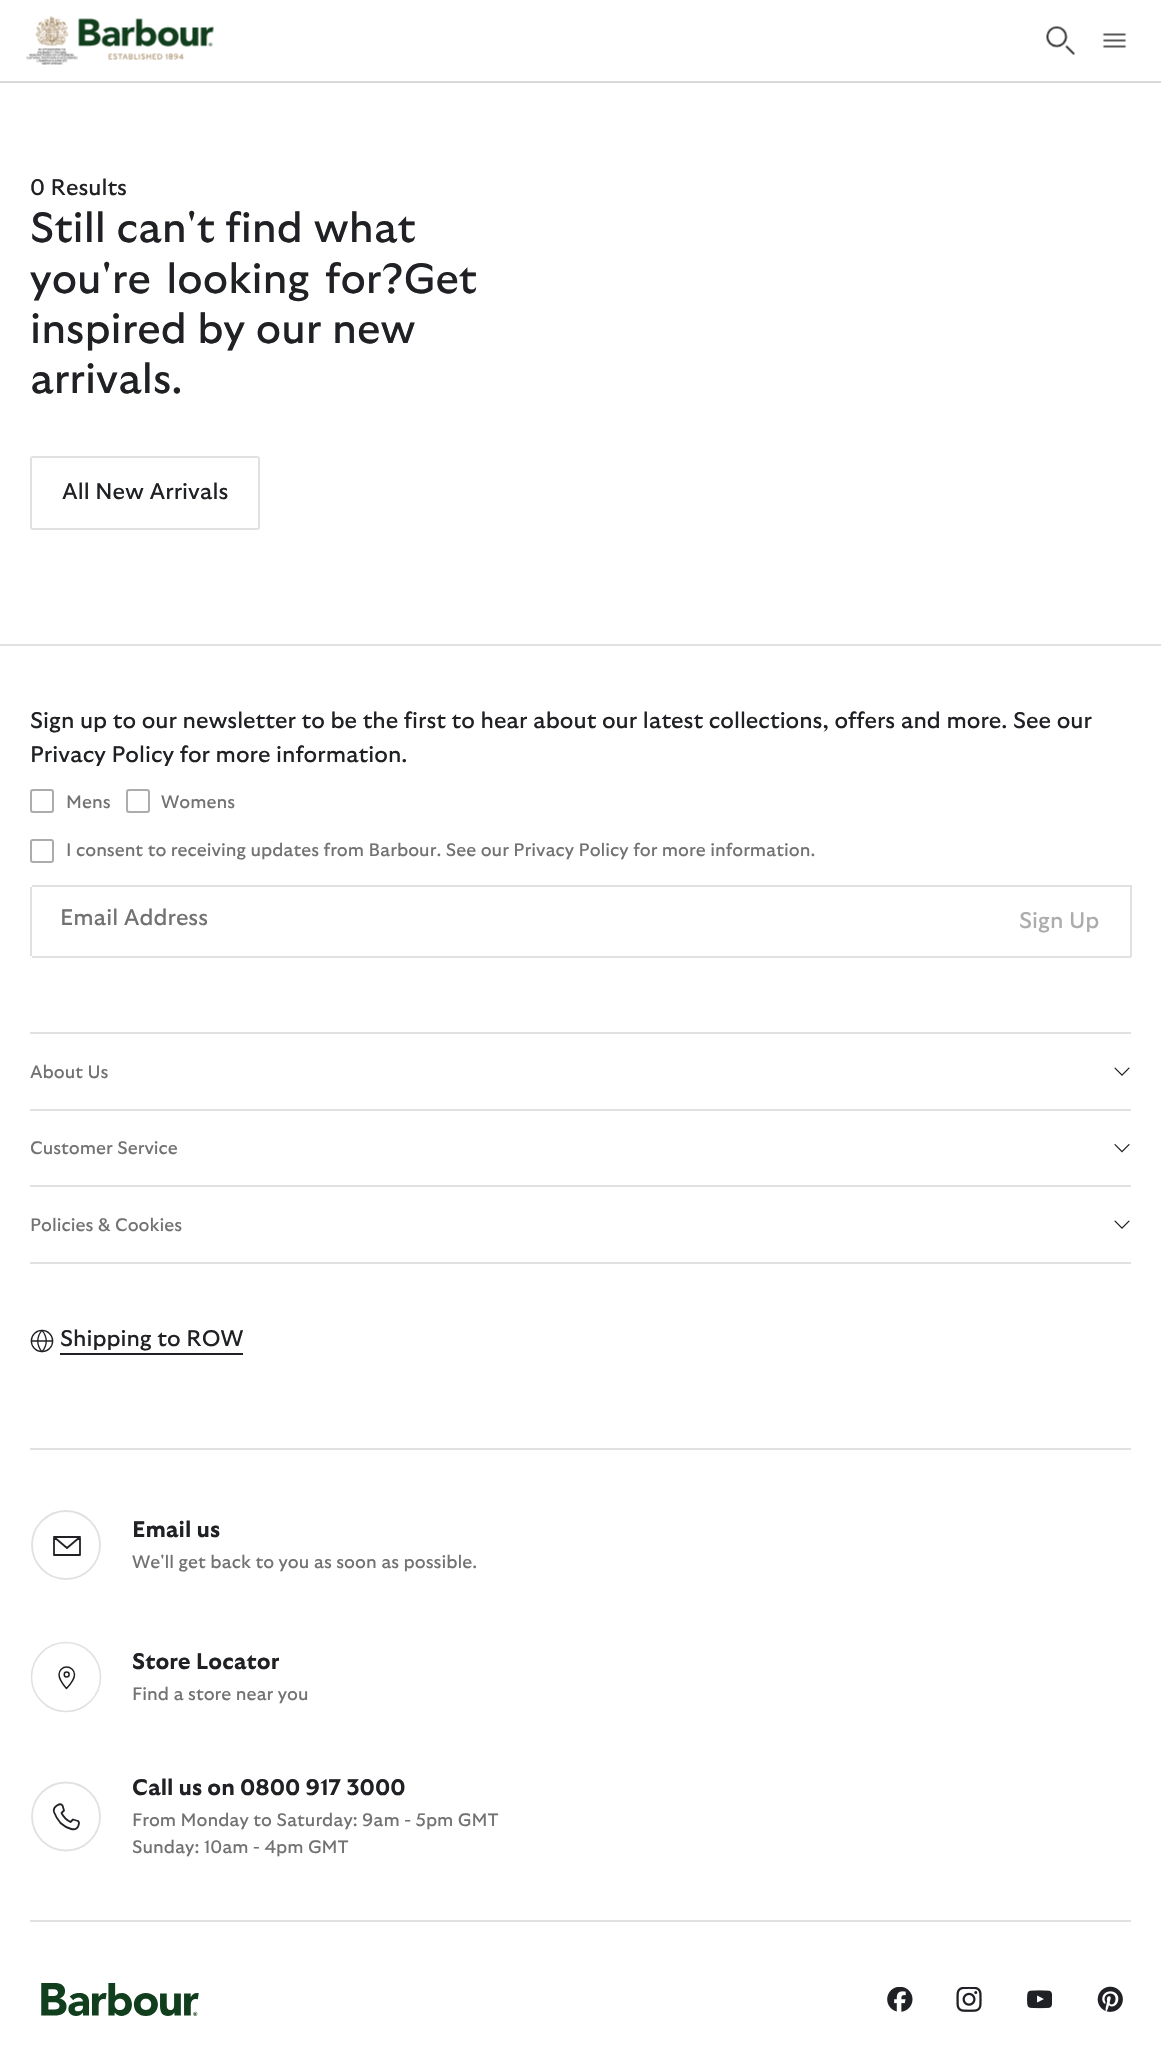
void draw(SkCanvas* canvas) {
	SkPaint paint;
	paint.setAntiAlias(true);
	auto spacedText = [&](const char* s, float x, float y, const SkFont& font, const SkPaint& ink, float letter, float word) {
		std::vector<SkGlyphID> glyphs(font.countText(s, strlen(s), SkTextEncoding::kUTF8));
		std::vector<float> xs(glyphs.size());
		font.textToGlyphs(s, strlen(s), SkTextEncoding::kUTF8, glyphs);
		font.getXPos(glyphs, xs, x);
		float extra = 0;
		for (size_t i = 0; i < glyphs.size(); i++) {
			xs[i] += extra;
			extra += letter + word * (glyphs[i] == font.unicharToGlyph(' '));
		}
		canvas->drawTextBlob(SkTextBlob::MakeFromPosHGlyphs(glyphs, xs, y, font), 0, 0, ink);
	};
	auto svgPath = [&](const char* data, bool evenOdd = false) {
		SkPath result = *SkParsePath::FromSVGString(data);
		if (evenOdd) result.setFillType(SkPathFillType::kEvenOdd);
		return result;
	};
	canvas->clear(0xffffffff);
	canvas->drawImageRect(SkImages::DeferredFromEncodedData(SkData::MakeFromFileName("img1.png")), SkRect::MakeXYWH(26, 16, 188, 49), SkSamplingOptions());
	canvas->drawImageRect(SkImages::DeferredFromEncodedData(SkData::MakeFromFileName("img2.png")), SkRect::MakeXYWH(1046, 26, 29, 29), SkSamplingOptions());
	canvas->drawImageRect(SkImages::DeferredFromEncodedData(SkData::MakeFromFileName("img3.png")), SkRect::MakeXYWH(1102, 33, 25, 15), SkSamplingOptions());
	paint.setColor(0xffd9d9d9);
	canvas->drawRect(SkRect::MakeXYWH(0, 81, 1161, 2), paint);
	SkFont f1(fontMgr->matchFamilyStyle("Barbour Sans", SkFontStyle::Normal()), 22.5);
	f1.setSubpixel(true);
	paint.setColor(0xff202124);
	canvas->drawString("0 Results", 30, 195, f1, paint);
	SkFont f2(fontMgr->matchFamilyStyle("Barbour Sans", SkFontStyle::Normal()), 42);
	f2.setSubpixel(true);
	canvas->drawString("Still can't find what", 30, 242, f2, paint);
	spacedText("you're looking for?Get", 30, 293, f2, paint, 0, 5);
	canvas->drawString("inspired by our new", 30, 343, f2, paint);
	canvas->drawString("arrivals.", 30, 393, f2, paint);
	paint.setStroke(true);
	paint.setStrokeWidth(2);
	paint.setColor(0xffe1e1e1);
	canvas->drawRoundRect(SkRect::MakeXYWH(31, 457, 228, 72), 2, 2, paint);
	paint.setStroke(false);
	paint.setColor(0xff202124);
	canvas->drawString("All New Arrivals", 62, 499, f1, paint);
	paint.setColor(0xffe1e1e1);
	canvas->drawRect(SkRect::MakeXYWH(0, 644, 1161, 2), paint);
	paint.setColor(0xff202124);
	canvas->drawString("Sign up to our newsletter to be the first to hear about our latest collections, offers and more. See our", 30, 728, f1, paint);
	canvas->drawString("Privacy Policy for more information.", 30, 762, f1, paint);
	paint.setStroke(true);
	paint.setColor(0xffacacac);
	canvas->drawRoundRect(SkRect::MakeXYWH(31, 790, 22, 22), 2, 2, paint);
	SkFont f3(fontMgr->matchFamilyStyle("Barbour Sans", SkFontStyle::Normal()), 18);
	f3.setSubpixel(true);
	paint.setStroke(false);
	paint.setColor(0xff727272);
	canvas->drawString("Mens", 66, 808, f3, paint);
	paint.setStroke(true);
	paint.setColor(0xffacacac);
	canvas->drawRoundRect(SkRect::MakeXYWH(127, 790, 22, 22), 2, 2, paint);
	paint.setStroke(false);
	paint.setColor(0xff727272);
	canvas->drawString("Womens", 161, 808, f3, paint);
	paint.setStroke(true);
	paint.setColor(0xffacacac);
	canvas->drawRoundRect(SkRect::MakeXYWH(31, 840, 22, 22), 2, 2, paint);
	paint.setStroke(false);
	paint.setColor(0xff727272);
	canvas->drawString("I consent to receiving updates from Barbour. See our Privacy Policy for more information.", 66, 856, f3, paint);
	paint.setColor(0xffe1e1e1);
	canvas->drawRect(SkRect::MakeXYWH(32, 885, 1099, 2), paint);
	canvas->drawRect(SkRect::MakeXYWH(32, 956, 960, 2), paint);
	canvas->drawRect(SkRect::MakeXYWH(30, 887, 2, 69), paint);
	paint.setColor(0xff727272);
	canvas->drawString("Email Address", 60, 925, f1, paint);
	paint.setColor(0xffe1e1e1);
	canvas->drawRect(SkRect::MakeXYWH(1130, 885, 2, 72), paint);
	canvas->drawRect(SkRect::MakeXYWH(990, 956, 141, 2), paint);
	paint.setColor(0xffacacac);
	canvas->drawString("Sign Up", 1019, 928, f1, paint);
	paint.setColor(0xffe1e1e1);
	canvas->drawRect(SkRect::MakeXYWH(30, 1032, 1101, 2), paint);
	paint.setColor(0xff727272);
	canvas->drawString("About Us", 30, 1078, f3, paint);
	canvas->drawImageRect(SkImages::DeferredFromEncodedData(SkData::MakeFromFileName("img4.png")), SkRect::MakeXYWH(1114, 1067, 16, 9), SkSamplingOptions());
	paint.setColor(0xffe1e1e1);
	canvas->drawRect(SkRect::MakeXYWH(30, 1109, 1101, 2), paint);
	paint.setColor(0xff727272);
	canvas->drawString("Customer Service", 30, 1154, f3, paint);
	canvas->drawImageRect(SkImages::DeferredFromEncodedData(SkData::MakeFromFileName("img5.png")), SkRect::MakeXYWH(1114, 1144, 16, 9), SkSamplingOptions());
	paint.setColor(0xffe1e1e1);
	canvas->drawRect(SkRect::MakeXYWH(30, 1262, 1101, 2), paint);
	canvas->drawRect(SkRect::MakeXYWH(30, 1185, 1101, 2), paint);
	paint.setColor(0xff727272);
	canvas->drawString("Policies & Cookies", 30, 1231, f3, paint);
	canvas->drawImageRect(SkImages::DeferredFromEncodedData(SkData::MakeFromFileName("img4.png")), SkRect::MakeXYWH(1114, 1220, 16, 9), SkSamplingOptions());
	canvas->drawImageRect(SkImages::DeferredFromEncodedData(SkData::MakeFromFileName("img6.png")), SkRect::MakeXYWH(30, 1329, 24, 24), SkSamplingOptions());
	paint.setColor(0xff202124);
	canvas->drawString("Shipping to ROW", 60, 1346, f1, paint);
	canvas->drawRect(SkRect::MakeXYWH(60, 1353, 183, 2), paint);
	paint.setColor(0xffe1e1e1);
	canvas->drawRect(SkRect::MakeXYWH(30, 1448, 1101, 2), paint);
	canvas->drawRect(SkRect::MakeXYWH(30, 1920, 1101, 2), paint);
	paint.setStroke(true);
	paint.setStrokeWidth(1.8);
	canvas->drawCircle(66, 1545, 34, paint);
	paint.setStrokeCap(SkPaint::kRound_Cap);
	paint.setStrokeJoin(SkPaint::kRound_Join);
	paint.setColor(0xff202124);
	canvas->drawPath(svgPath("M54 1537H80V1555H54ZM54 1537L67 1548L80 1537"), paint);
	SkFont f4(fontMgr->matchFamilyStyle("Barbour Sans", SkFontStyle::Bold()), 22.5);
	f4.setSubpixel(true);
	paint.setStroke(false);
	canvas->drawString("Email us", 132, 1537, f4, paint);
	paint.setColor(0xff727272);
	canvas->drawString("We'll get back to you as soon as possible.", 132, 1568, f3, paint);
	paint.setStroke(true);
	paint.setStrokeWidth(1.5);
	paint.setStrokeCap(SkPaint::kButt_Cap);
	paint.setStrokeJoin(SkPaint::kMiter_Join);
	paint.setColor(0xffe1e1e1);
	canvas->drawCircle(66, 1677, 34.5, paint);
	paint.setStrokeJoin(SkPaint::kRound_Join);
	paint.setColor(0xff202124);
	canvas->drawPath(svgPath("M66.5 1667C62.5 1667 59 1670.5 59 1674.5C59 1680 66.5 1688.5 66.5 1688.5C66.5 1688.5 74.5 1680 74.5 1674.5C74.5 1670.5 71 1667 66.5 1667ZM66.5 1677C63.5 1677 63.5 1672 66.5 1672C70 1672 70 1677 66.5 1677Z"), paint);
	paint.setStroke(false);
	canvas->drawString("Store Locator", 132, 1669, f4, paint);
	paint.setColor(0xff727272);
	canvas->drawString("Find a store near you", 132, 1700, f3, paint);
	paint.setStroke(true);
	paint.setStrokeWidth(1.8);
	paint.setStrokeJoin(SkPaint::kMiter_Join);
	paint.setColor(0xffe1e1e1);
	canvas->drawCircle(66, 1816.5, 34, paint);
	paint.setStrokeCap(SkPaint::kRound_Cap);
	paint.setStrokeJoin(SkPaint::kRound_Join);
	paint.setColor(0xff202124);
	canvas->drawPath(svgPath("M54 1812C55.5 1816 57.5 1819.5 60.5 1823C65.5 1827.5 78 1834.5 79 1823C79 1822 78.5 1821.5 78 1821L73 1819.5L70.5 1822C66.5 1820 63.5 1817 61.5 1813L64 1810.5L62.5 1805.5C60.5 1802.5 52.5 1806.5 54 1812Z"), paint);
	paint.setStroke(false);
	canvas->drawString("Call us on 0800 917 3000", 132, 1795, f4, paint);
	paint.setColor(0xff727272);
	canvas->drawString("From Monday to Saturday: 9am - 5pm GMT", 132, 1826, f3, paint);
	canvas->drawString("Sunday: 10am - 4pm GMT", 132, 1853, f3, paint);
	canvas->drawImageRect(SkImages::DeferredFromEncodedData(SkData::MakeFromFileName("img7.png")), SkRect::MakeXYWH(41, 1983, 158, 33), SkSamplingOptions());
	canvas->drawImageRect(SkImages::DeferredFromEncodedData(SkData::MakeFromFileName("img8.png")), SkRect::MakeXYWH(887, 1987, 26, 25), SkSamplingOptions());
	canvas->drawImageRect(SkImages::DeferredFromEncodedData(SkData::MakeFromFileName("img9.png")), SkRect::MakeXYWH(956, 1987, 26, 25), SkSamplingOptions());
	canvas->drawImageRect(SkImages::DeferredFromEncodedData(SkData::MakeFromFileName("img10.png")), SkRect::MakeXYWH(1027, 1990, 25, 19), SkSamplingOptions());
	canvas->drawImageRect(SkImages::DeferredFromEncodedData(SkData::MakeFromFileName("img11.png")), SkRect::MakeXYWH(1097, 1986, 26, 26), SkSamplingOptions());
}
